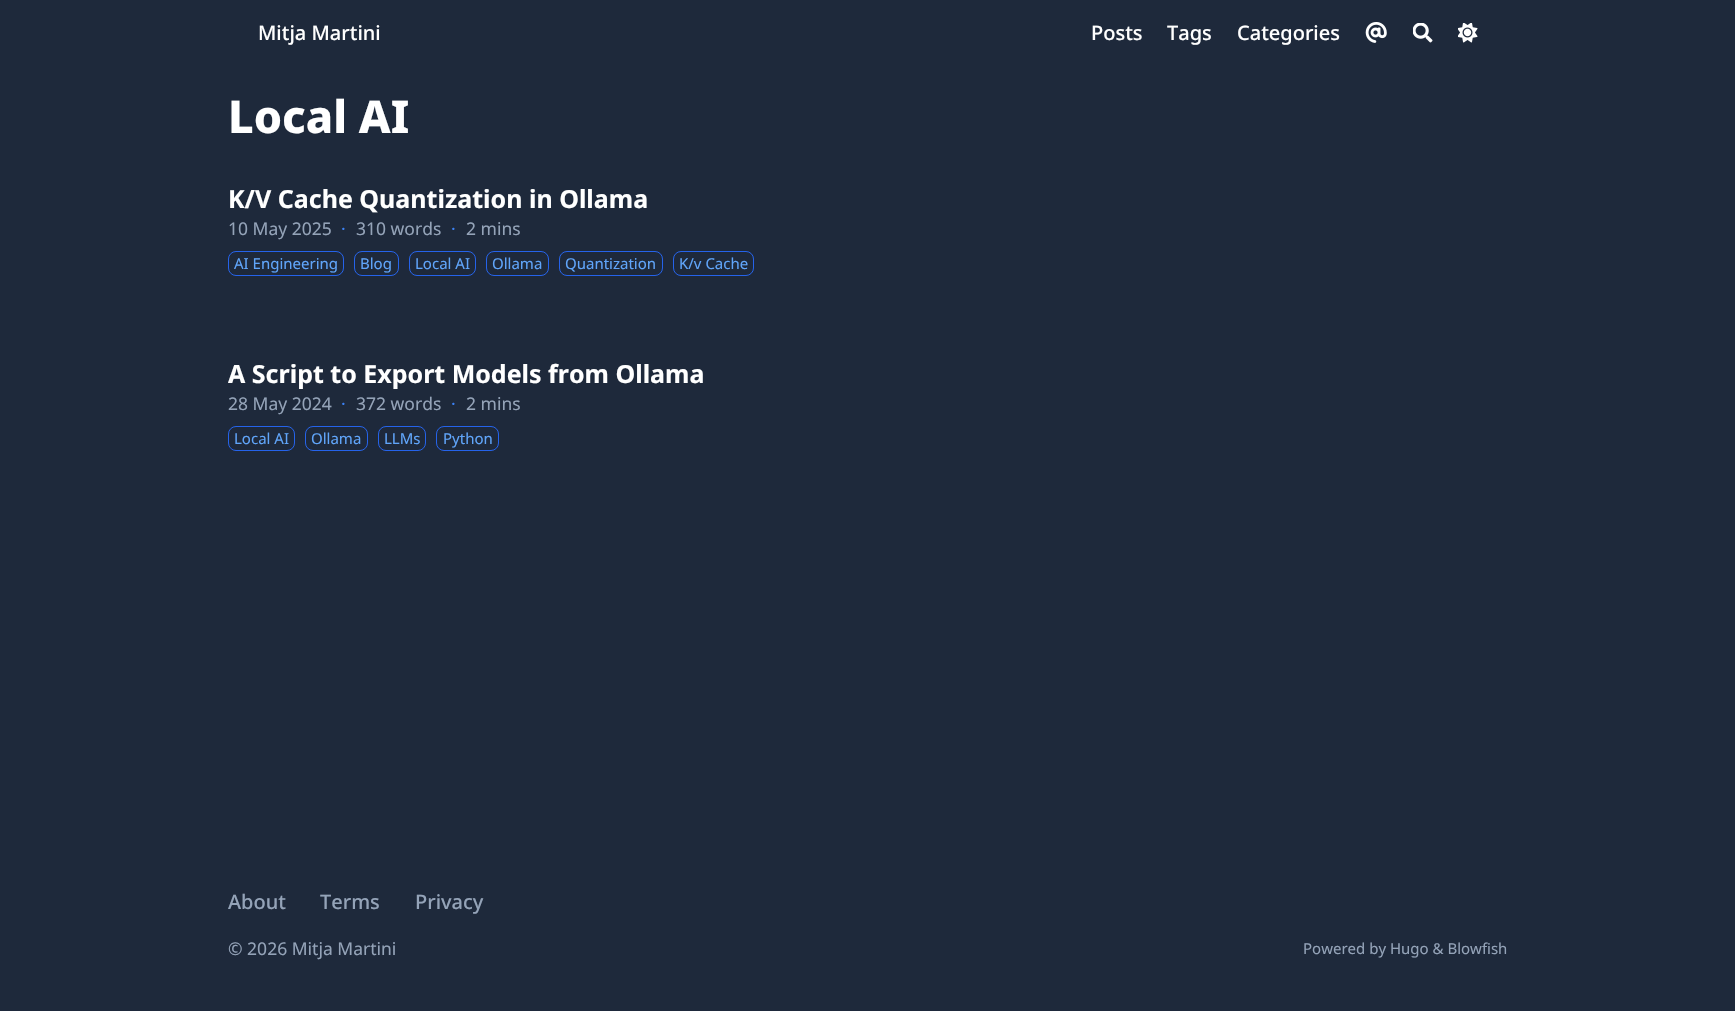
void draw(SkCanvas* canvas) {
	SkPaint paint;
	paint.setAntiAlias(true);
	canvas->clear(0xff1e293b);
	SkFont f1(fontMgr->matchFamilyStyle("Noto Sans", SkFontStyle(500, SkFontStyle::kNormal_Width, SkFontStyle::kUpright_Slant)), 20);
	f1.setSubpixel(true);
	paint.setColor(0xffffffff);
	canvas->drawString("Mitja Martini", 258, 40, f1, paint);
	canvas->drawString("Posts", 1091, 40, f1, paint);
	canvas->drawString("Tags", 1167, 40, f1, paint);
	canvas->drawString("Categories", 1237, 40, f1, paint);
	canvas->drawImageRect(SkImages::DeferredFromEncodedData(SkData::MakeFromFileName("img1.png")), SkRect::MakeXYWH(1365, 22, 22, 21), SkSamplingOptions());
	canvas->drawImageRect(SkImages::DeferredFromEncodedData(SkData::MakeFromFileName("img2.png")), SkRect::MakeXYWH(1413, 23, 20, 20), SkSamplingOptions());
	canvas->drawImageRect(SkImages::DeferredFromEncodedData(SkData::MakeFromFileName("img3.png")), SkRect::MakeXYWH(1458, 23, 20, 20), SkSamplingOptions());
	SkFont f2(fontMgr->matchFamilyStyle("Noto Sans", SkFontStyle(800, SkFontStyle::kNormal_Width, SkFontStyle::kUpright_Slant)), 45);
	f2.setSubpixel(true);
	canvas->drawString("Local AI", 228, 133, f2, paint);
	SkFont f3(fontMgr->matchFamilyStyle("Noto Sans", SkFontStyle::Bold()), 25);
	f3.setSubpixel(true);
	canvas->drawString("K/V Cache Quantization in Ollama", 228, 208, f3, paint);
	SkFont f4(fontMgr->matchFamilyStyle("Noto Sans", SkFontStyle::Normal()), 17.5);
	f4.setSubpixel(true);
	paint.setColor(0xff94a3b8);
	canvas->drawString("10 May 2025", 228, 235, f4, paint);
	paint.setColor(0xff3b82f6);
	canvas->drawString("·", 341, 235, f4, paint);
	paint.setColor(0xff94a3b8);
	canvas->drawString("310 words", 356, 235, f4, paint);
	paint.setColor(0xff3b82f6);
	canvas->drawString("·", 451, 235, f4, paint);
	paint.setColor(0xff94a3b8);
	canvas->drawString("2 mins", 466, 235, f4, paint);
	paint.setStroke(true);
	paint.setStrokeWidth(1);
	paint.setColor(0xff2563eb);
	canvas->drawRoundRect(SkRect::MakeXYWH(228.5, 251.5, 115, 24), 7.5, 7.5, paint);
	SkFont f5(fontMgr->matchFamilyStyle("Noto Sans", SkFontStyle::Normal()), 15);
	f5.setSubpixel(true);
	paint.setStroke(false);
	paint.setColor(0xff60a5fa);
	canvas->drawString("AI Engineering", 234, 269, f5, paint);
	paint.setStroke(true);
	paint.setColor(0xff2563eb);
	canvas->drawRoundRect(SkRect::MakeXYWH(354.5, 251.5, 44, 24), 7.5, 7.5, paint);
	paint.setStroke(false);
	paint.setColor(0xff60a5fa);
	canvas->drawString("Blog", 360, 269, f5, paint);
	paint.setStroke(true);
	paint.setColor(0xff2563eb);
	canvas->drawRoundRect(SkRect::MakeXYWH(409.5, 251.5, 66, 24), 7.5, 7.5, paint);
	paint.setStroke(false);
	paint.setColor(0xff60a5fa);
	canvas->drawString("Local AI", 415, 269, f5, paint);
	paint.setStroke(true);
	paint.setColor(0xff2563eb);
	canvas->drawRoundRect(SkRect::MakeXYWH(486.5, 251.5, 62, 24), 7.5, 7.5, paint);
	paint.setStroke(false);
	paint.setColor(0xff60a5fa);
	canvas->drawString("Ollama", 492, 269, f5, paint);
	paint.setStroke(true);
	paint.setColor(0xff2563eb);
	canvas->drawRoundRect(SkRect::MakeXYWH(559.5, 251.5, 103, 24), 7.5, 7.5, paint);
	paint.setStroke(false);
	paint.setColor(0xff60a5fa);
	canvas->drawString("Quantization", 565, 269, f5, paint);
	paint.setStroke(true);
	paint.setColor(0xff2563eb);
	canvas->drawRoundRect(SkRect::MakeXYWH(673.5, 251.5, 80, 24), 7.5, 7.5, paint);
	paint.setStroke(false);
	paint.setColor(0xff60a5fa);
	canvas->drawString("K/v Cache", 679, 269, f5, paint);
	paint.setColor(0xffffffff);
	canvas->drawString("A Script to Export Models from Ollama", 228, 383, f3, paint);
	paint.setColor(0xff94a3b8);
	canvas->drawString("28 May 2024", 228, 410, f4, paint);
	paint.setColor(0xff3b82f6);
	canvas->drawString("·", 341, 410, f4, paint);
	paint.setColor(0xff94a3b8);
	canvas->drawString("372 words", 356, 410, f4, paint);
	paint.setColor(0xff3b82f6);
	canvas->drawString("·", 451, 410, f4, paint);
	paint.setColor(0xff94a3b8);
	canvas->drawString("2 mins", 466, 410, f4, paint);
	paint.setStroke(true);
	paint.setColor(0xff2563eb);
	canvas->drawRoundRect(SkRect::MakeXYWH(228.5, 426.5, 66, 24), 7.5, 7.5, paint);
	paint.setStroke(false);
	paint.setColor(0xff60a5fa);
	canvas->drawString("Local AI", 234, 444, f5, paint);
	paint.setStroke(true);
	paint.setColor(0xff2563eb);
	canvas->drawRoundRect(SkRect::MakeXYWH(305.5, 426.5, 62, 24), 7.5, 7.5, paint);
	paint.setStroke(false);
	paint.setColor(0xff60a5fa);
	canvas->drawString("Ollama", 311, 444, f5, paint);
	paint.setStroke(true);
	paint.setColor(0xff2563eb);
	canvas->drawRoundRect(SkRect::MakeXYWH(378.5, 426.5, 47, 24), 7.5, 7.5, paint);
	paint.setStroke(false);
	paint.setColor(0xff60a5fa);
	canvas->drawString("LLMs", 384, 444, f5, paint);
	paint.setStroke(true);
	paint.setColor(0xff2563eb);
	canvas->drawRoundRect(SkRect::MakeXYWH(436.5, 426.5, 62, 24), 7.5, 7.5, paint);
	paint.setStroke(false);
	paint.setColor(0xff60a5fa);
	canvas->drawString("Python", 443, 444, f5, paint);
	paint.setColor(0xff94a3b8);
	canvas->drawString("About", 228, 909, f1, paint);
	canvas->drawString("Terms", 320, 909, f1, paint);
	canvas->drawString("Privacy", 415, 909, f1, paint);
	canvas->drawString("© 2026 Mitja Martini", 228, 955, f4, paint);
	canvas->drawString("Powered by Hugo & Blowfish", 1303, 954, f5, paint);
}
